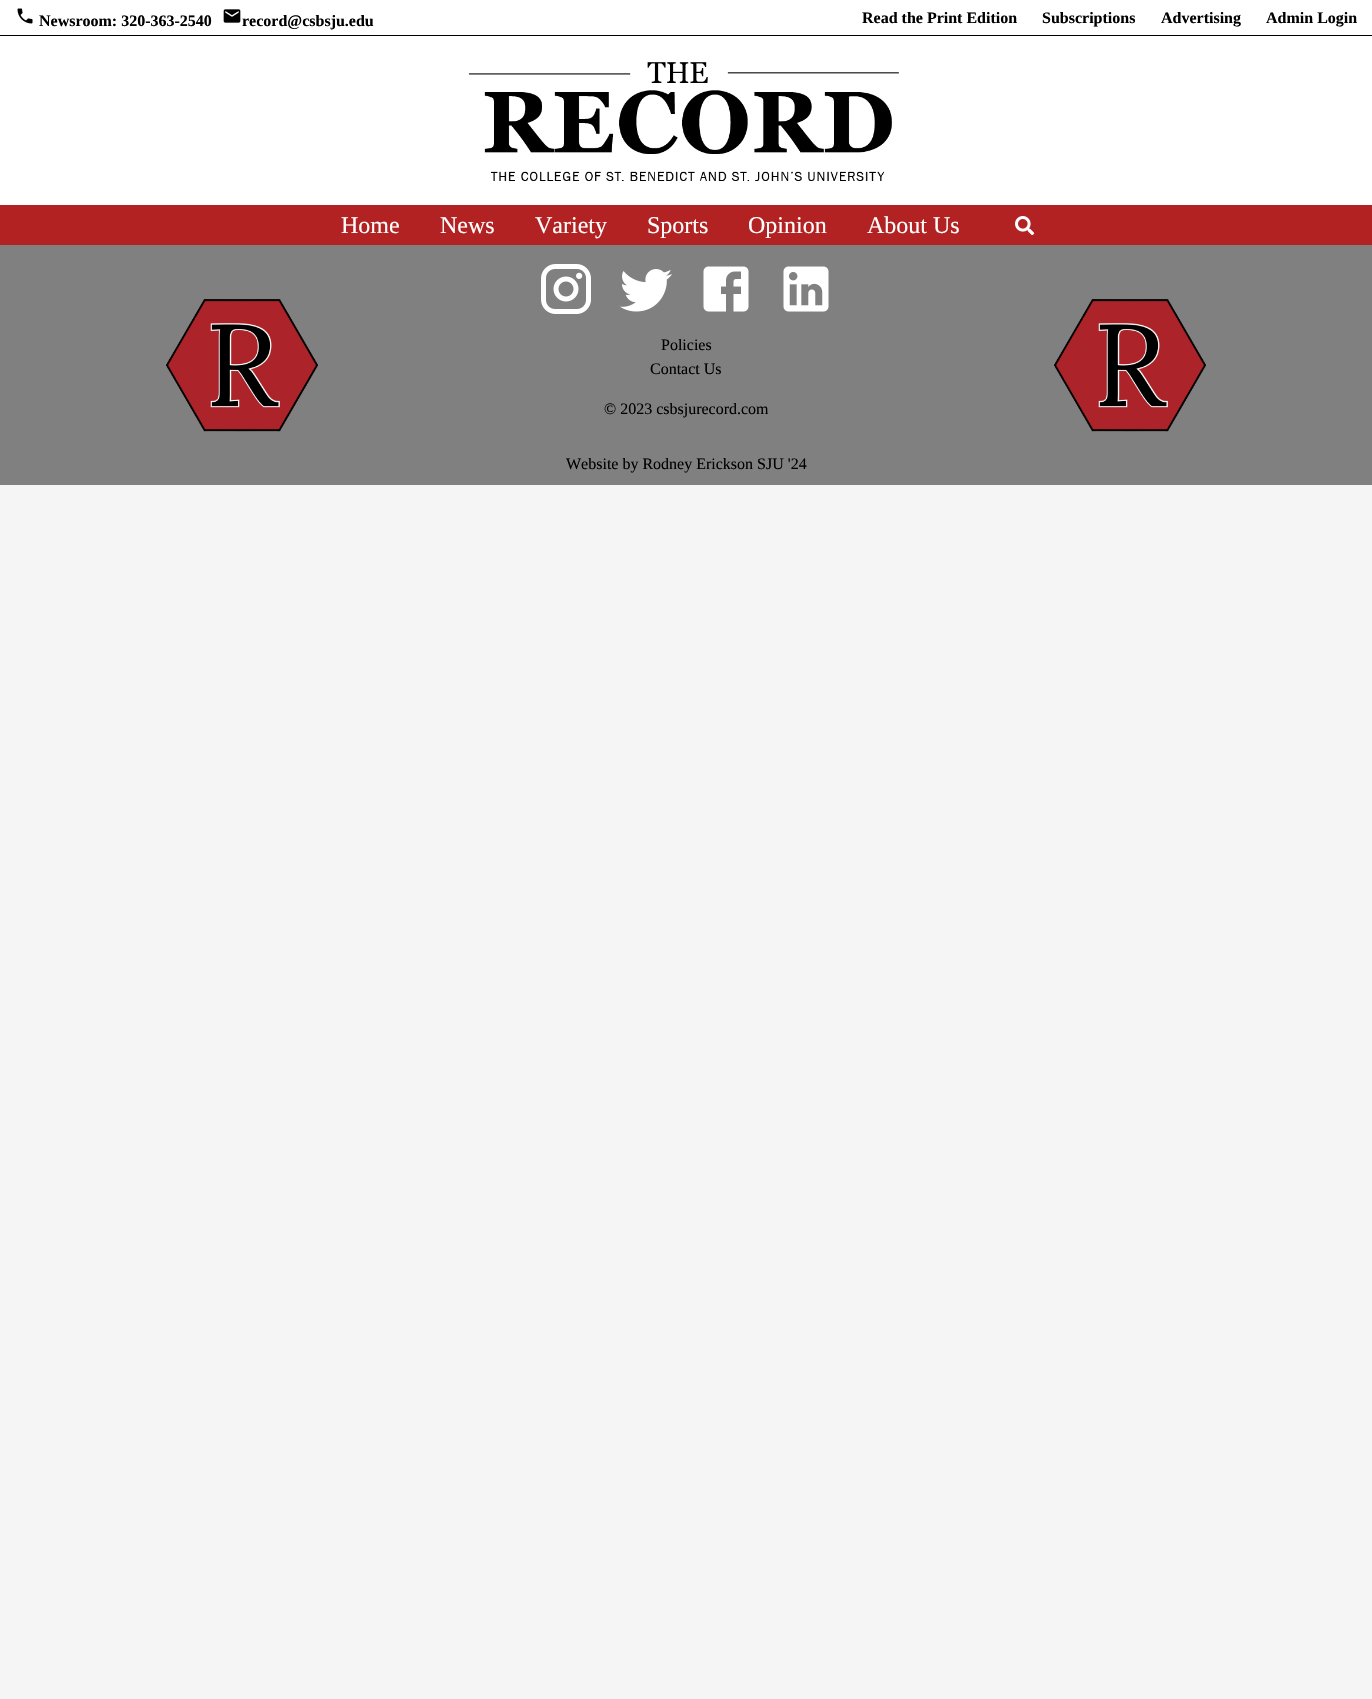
void draw(SkCanvas* canvas) {
	SkPaint paint;
	paint.setAntiAlias(true);
	canvas->clear(0xfff5f5f5);
	paint.setColor(0xffffffff);
	canvas->drawRect(SkRect::MakeXYWH(0, 0, 1372, 35), paint);
	paint.setColor(0xff000000);
	canvas->drawRect(SkRect::MakeXYWH(0, 35, 1372, 1), paint);
	canvas->drawImageRect(SkImages::DeferredFromEncodedData(SkData::MakeFromFileName("img1.png")), SkRect::MakeXYWH(17, 8, 16, 16), SkSamplingOptions());
	SkFont f1(fontMgr->matchFamilyStyle("Liberation Serif", SkFontStyle::Bold()), 16);
	f1.setSubpixel(true);
	canvas->drawString("Newsroom: 320-363-2540", 39, 26, f1, paint);
	canvas->drawImageRect(SkImages::DeferredFromEncodedData(SkData::MakeFromFileName("img2.png")), SkRect::MakeXYWH(223, 9, 18, 14), SkSamplingOptions());
	canvas->drawString("record@csbsju.edu", 242, 26, f1, paint);
	canvas->drawString("Read the Print Edition", 862, 23, f1, paint);
	canvas->drawString("Subscriptions", 1042, 23, f1, paint);
	canvas->drawString("Advertising", 1161, 23, f1, paint);
	canvas->drawString("Admin Login", 1266, 23, f1, paint);
	paint.setColor(0xffffffff);
	canvas->drawRect(SkRect::MakeXYWH(0, 36, 1372, 169), paint);
	canvas->drawImageRect(SkImages::DeferredFromEncodedData(SkData::MakeFromFileName("img3.png")), SkRect::MakeXYWH(468, 62, 431, 119), SkSamplingOptions());
	paint.setColor(0xffb22222);
	canvas->drawRect(SkRect::MakeXYWH(0, 205, 1372, 40), paint);
	SkFont f2(fontMgr->matchFamilyStyle("Liberation Serif", SkFontStyle::Normal()), 24);
	f2.setSubpixel(true);
	paint.setColor(0xffffffff);
	canvas->drawString("Home", 341, 233, f2, paint);
	canvas->drawString("News", 440, 233, f2, paint);
	canvas->drawString("Variety", 535, 233, f2, paint);
	canvas->drawString("Sports", 647, 233, f2, paint);
	canvas->drawString("Opinion", 748, 233, f2, paint);
	canvas->drawString("About Us", 867, 233, f2, paint);
	canvas->drawImageRect(SkImages::DeferredFromEncodedData(SkData::MakeFromFileName("img4.png")), SkRect::MakeXYWH(1015, 216, 20, 19), SkSamplingOptions());
	paint.setColor(0xff808080);
	canvas->drawRect(SkRect::MakeXYWH(0, 245, 1372, 240), paint);
	canvas->drawImageRect(SkImages::DeferredFromEncodedData(SkData::MakeFromFileName("img5.png")), SkRect::MakeXYWH(166, 299, 152, 133), SkSamplingOptions());
	canvas->drawImageRect(SkImages::DeferredFromEncodedData(SkData::MakeFromFileName("img6.png")), SkRect::MakeXYWH(541, 264, 50, 50), SkSamplingOptions());
	canvas->drawImageRect(SkImages::DeferredFromEncodedData(SkData::MakeFromFileName("img7.png")), SkRect::MakeXYWH(620, 269, 52, 43), SkSamplingOptions());
	canvas->drawImageRect(SkImages::DeferredFromEncodedData(SkData::MakeFromFileName("img8.png")), SkRect::MakeXYWH(703, 266, 46, 46), SkSamplingOptions());
	canvas->drawImageRect(SkImages::DeferredFromEncodedData(SkData::MakeFromFileName("img9.png")), SkRect::MakeXYWH(783, 266, 46, 46), SkSamplingOptions());
	SkFont f3(fontMgr->matchFamilyStyle("Liberation Serif", SkFontStyle::Normal()), 16);
	f3.setSubpixel(true);
	paint.setColor(0xff000000);
	canvas->drawString("Policies", 661, 350, f3, paint);
	canvas->drawString("Contact Us", 650, 374, f3, paint);
	canvas->drawString("© 2023 csbsjurecord.com", 604, 414, f3, paint);
	canvas->drawString("Website by Rodney Erickson SJU '24", 566, 469, f3, paint);
	canvas->drawImageRect(SkImages::DeferredFromEncodedData(SkData::MakeFromFileName("img5.png")), SkRect::MakeXYWH(1054, 299, 152, 133), SkSamplingOptions());
}
